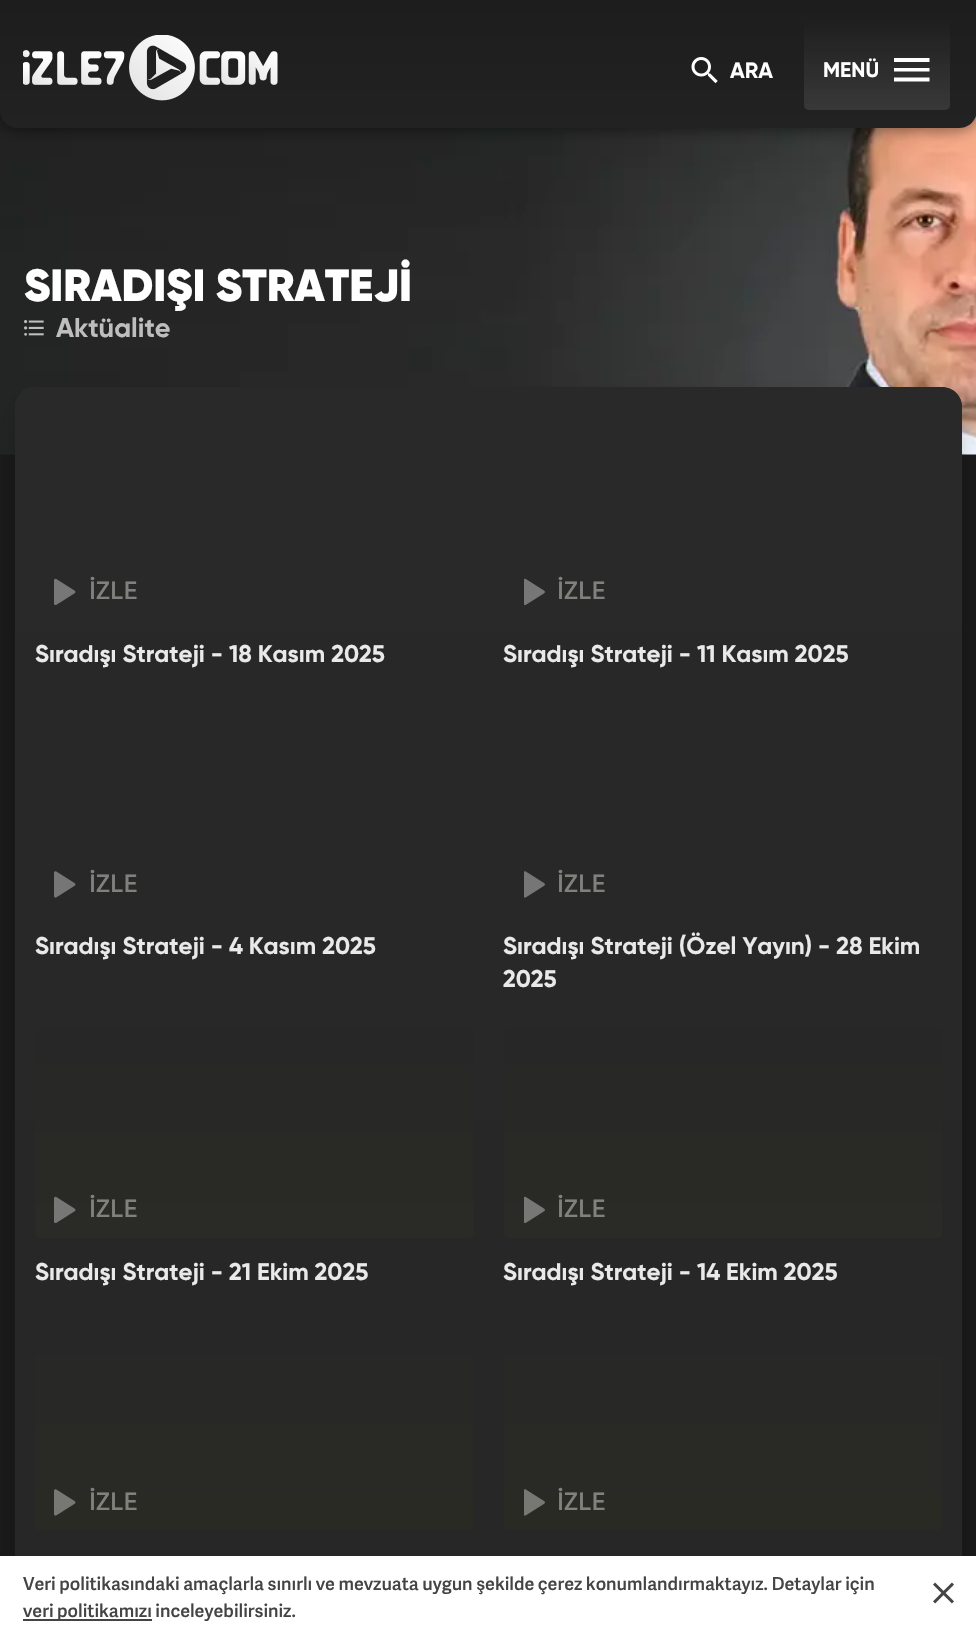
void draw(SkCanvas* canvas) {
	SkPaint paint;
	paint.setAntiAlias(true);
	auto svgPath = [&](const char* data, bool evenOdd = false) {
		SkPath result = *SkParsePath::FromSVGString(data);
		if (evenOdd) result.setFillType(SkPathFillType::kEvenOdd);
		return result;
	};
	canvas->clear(0xff1a1a1a);
	canvas->drawImageRect(SkImages::DeferredFromEncodedData(SkData::MakeFromFileName("img3.png")), SkRect::MakeXYWH(0, 110, 976, 345), SkSamplingOptions());
	paint.setColor(0x66000000);
	paint.setMaskFilter(SkMaskFilter::MakeBlur(kNormal_SkBlurStyle, 7));
	canvas->drawRoundRect(SkRect::MakeXYWH(0, 3, 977, 128), 18, 18, paint);
	paint.setMaskFilter(nullptr);
	{
		const SkColor colors[] = {0xff222222, 0xff1d1d1d};
		const float stops[] = {0, 1};
		const SkPoint ends[] = {{488, 128}, {488, 0}};
		paint.setShader(SkGradientShader::MakeLinear(ends, colors, stops, 2, SkTileMode::kClamp));
		paint.setAlpha(255);
	}
	canvas->drawPath(svgPath("M0 0H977V110C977 120 969 128 959 128H18C8 128 0 120 0 110Z"), paint);
	canvas->drawImageRect(SkImages::DeferredFromEncodedData(SkData::MakeFromFileName("img1.png")), SkRect::MakeXYWH(23, 35, 255, 66), SkSamplingOptions());
	canvas->drawImageRect(SkImages::DeferredFromEncodedData(SkData::MakeFromFileName("img2.png")), SkRect::MakeXYWH(691, 57, 27, 27), SkSamplingOptions());
	SkFont f1(fontMgr->matchFamilyStyle("Gilroy", SkFontStyle::Bold()), 22);
	f1.setSubpixel(true);
	paint.setShader(nullptr);
	paint.setColor(0xffffffff);
	canvas->drawString("ARA", 730, 78, f1, paint);
	{
		const SkColor colors[] = {0x00ffffff, 0x1affffff, 0x00ffffff, 0x00bd0f0f};
		const float stops[] = {0, 0.25, 0.5, 0.75};
		const SkPoint ends[] = {{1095, 19}, {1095, 380}};
		paint.setShader(SkGradientShader::MakeLinear(ends, colors, stops, 4, SkTileMode::kClamp));
		paint.setAlpha(255);
	}
	canvas->drawRoundRect(SkRect::MakeXYWH(804, 20, 146, 90), 5, 5, paint);
	SkFont f2(fontMgr->matchFamilyStyle("Gilroy", SkFontStyle::Bold()), 21);
	f2.setSubpixel(true);
	paint.setShader(nullptr);
	paint.setColor(0xffffffff);
	canvas->drawString("MENÜ", 823, 77, f2, paint);
	canvas->drawPath(svgPath("M894 81.5V77.5H929.5V81.5ZM894 71.5V68H929.5V71.5ZM894 58H929.5V62H894Z"), paint);
	SkFont f3(fontMgr->matchFamilyStyle("Gilroy", SkFontStyle(900, SkFontStyle::kNormal_Width, SkFontStyle::kUpright_Slant)), 45);
	f3.setSubpixel(true);
	canvas->drawString("SIRADIŞI STRATEJİ", 24, 301, f3, paint);
	canvas->drawImageRect(SkImages::DeferredFromEncodedData(SkData::MakeFromFileName("img4.png")), SkRect::MakeXYWH(24, 320, 20, 16), SkSamplingOptions());
	SkFont f4(fontMgr->matchFamilyStyle("Gilroy", SkFontStyle::Bold()), 27);
	f4.setSubpixel(true);
	paint.setColor(0xffbebebe);
	canvas->drawString("Aktüalite", 56, 337, f4, paint);
	paint.setColor(0x2e000000);
	paint.setMaskFilter(SkMaskFilter::MakeBlur(kNormal_SkBlurStyle, 10));
	canvas->drawRoundRect(SkRect::MakeXYWH(15, 401, 947, 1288), 20, 20, paint);
	paint.setMaskFilter(nullptr);
	paint.setColor(0xff292929);
	canvas->drawRoundRect(SkRect::MakeXYWH(15, 387, 947, 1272), 20, 20, paint);
	canvas->save();
	canvas->clipPath(svgPath("M35 387H942C953 387 962 396 962 407V5308C962 5319 953 5328 942 5328H35C24 5328 15 5319 15 5308V407C15 396 24 387 35 387Z"), true);
	{
		const SkColor colors[] = {0xff292929, 0xff1f1f1f};
		const float stops[] = {0, 0.99};
		const SkPoint ends[] = {{488, 387}, {488, 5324}};
		paint.setShader(SkGradientShader::MakeLinear(ends, colors, stops, 2, SkTileMode::kClamp));
		paint.setAlpha(255);
	}
	canvas->drawPath(svgPath("M35 387H942C953 387 962 396 962 407V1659H15V407C15 396 24 387 35 387Z"), paint);
	canvas->restore();
	canvas->drawImageRect(SkImages::DeferredFromEncodedData(SkData::MakeFromFileName("img5.png")), SkRect::MakeXYWH(54, 578, 22, 27), SkSamplingOptions());
	SkFont f5(fontMgr->matchFamilyStyle("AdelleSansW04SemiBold", SkFontStyle(600, SkFontStyle::kNormal_Width, SkFontStyle::kUpright_Slant)), 24);
	f5.setSubpixel(true);
	paint.setShader(nullptr);
	paint.setColor(0xff80807d);
	canvas->drawString("İZLE", 89, 599, f5, paint);
	SkFont f6(fontMgr->matchFamilyStyle("Gilroy", SkFontStyle::Bold()), 24);
	f6.setSubpixel(true);
	paint.setColor(0xffe9e9e9);
	canvas->drawString("Sıradışı Strateji - 18 Kasım 2025", 35, 662, f6, paint);
	canvas->drawImageRect(SkImages::DeferredFromEncodedData(SkData::MakeFromFileName("img6.png")), SkRect::MakeXYWH(524, 578, 21, 27), SkSamplingOptions());
	paint.setColor(0xff80807d);
	canvas->drawString("İZLE", 557, 599, f5, paint);
	paint.setColor(0xffe9e9e9);
	canvas->drawString("Sıradışı Strateji - 11 Kasım 2025", 503, 662, f6, paint);
	canvas->drawImageRect(SkImages::DeferredFromEncodedData(SkData::MakeFromFileName("img7.png")), SkRect::MakeXYWH(54, 871, 22, 27), SkSamplingOptions());
	paint.setColor(0xff80807d);
	canvas->drawString("İZLE", 89, 892, f5, paint);
	paint.setColor(0xffe9e9e9);
	canvas->drawString("Sıradışı Strateji - 4 Kasım 2025", 35, 954, f6, paint);
	canvas->drawImageRect(SkImages::DeferredFromEncodedData(SkData::MakeFromFileName("img8.png")), SkRect::MakeXYWH(524, 871, 21, 27), SkSamplingOptions());
	paint.setColor(0xff80807d);
	canvas->drawString("İZLE", 557, 892, f5, paint);
	paint.setColor(0xffe9e9e9);
	canvas->drawString("Sıradışı Strateji (Özel Yayın) - 28 Ekim", 503, 954, f6, paint);
	canvas->drawString("2025", 503, 987, f6, paint);
	{
		const SkColor colors[] = {0xff272727, 0xff2a2a26};
		const float stops[] = {0, 1};
		const SkPoint ends[] = {{254, 1028}, {254, 1238}};
		paint.setShader(SkGradientShader::MakeLinear(ends, colors, stops, 2, SkTileMode::kClamp));
		paint.setAlpha(255);
	}
	canvas->drawRoundRect(SkRect::MakeXYWH(35, 1028, 439, 210), 5, 5, paint);
	canvas->drawImageRect(SkImages::DeferredFromEncodedData(SkData::MakeFromFileName("img9.png")), SkRect::MakeXYWH(54, 1196, 22, 27), SkSamplingOptions());
	paint.setShader(nullptr);
	paint.setColor(0xff80807d);
	canvas->drawString("İZLE", 89, 1217, f5, paint);
	paint.setColor(0xffe9e9e9);
	canvas->drawString("Sıradışı Strateji - 21 Ekim 2025", 35, 1280, f6, paint);
	{
		const SkColor colors[] = {0xff272727, 0xff2a2a26};
		const float stops[] = {0, 1};
		const SkPoint ends[] = {{723, 1028}, {723, 1238}};
		paint.setShader(SkGradientShader::MakeLinear(ends, colors, stops, 2, SkTileMode::kClamp));
		paint.setAlpha(255);
	}
	canvas->drawRoundRect(SkRect::MakeXYWH(504, 1028, 438, 210), 5, 5, paint);
	canvas->drawImageRect(SkImages::DeferredFromEncodedData(SkData::MakeFromFileName("img10.png")), SkRect::MakeXYWH(524, 1196, 21, 27), SkSamplingOptions());
	paint.setShader(nullptr);
	paint.setColor(0xff80807d);
	canvas->drawString("İZLE", 557, 1217, f5, paint);
	paint.setColor(0xffe9e9e9);
	canvas->drawString("Sıradışı Strateji - 14 Ekim 2025", 503, 1280, f6, paint);
	{
		const SkColor colors[] = {0xff272727, 0xff2a2a25};
		const float stops[] = {0, 1};
		const SkPoint ends[] = {{254, 1320}, {254, 1530}};
		paint.setShader(SkGradientShader::MakeLinear(ends, colors, stops, 2, SkTileMode::kClamp));
		paint.setAlpha(255);
	}
	canvas->drawRoundRect(SkRect::MakeXYWH(35, 1320, 439, 210), 5, 5, paint);
	canvas->drawImageRect(SkImages::DeferredFromEncodedData(SkData::MakeFromFileName("img11.png")), SkRect::MakeXYWH(54, 1489, 22, 27), SkSamplingOptions());
	paint.setShader(nullptr);
	paint.setColor(0xff80807d);
	canvas->drawString("İZLE", 89, 1510, f5, paint);
	{
		const SkColor colors[] = {0xff272727, 0xff2a2a25};
		const float stops[] = {0, 1};
		const SkPoint ends[] = {{723, 1320}, {723, 1530}};
		paint.setShader(SkGradientShader::MakeLinear(ends, colors, stops, 2, SkTileMode::kClamp));
		paint.setAlpha(255);
	}
	canvas->drawRoundRect(SkRect::MakeXYWH(504, 1320, 438, 210), 5, 5, paint);
	canvas->drawImageRect(SkImages::DeferredFromEncodedData(SkData::MakeFromFileName("img12.png")), SkRect::MakeXYWH(524, 1489, 21, 27), SkSamplingOptions());
	paint.setShader(nullptr);
	paint.setColor(0xff80807d);
	canvas->drawString("İZLE", 557, 1510, f5, paint);
	paint.setColor(0xffffffff);
	canvas->drawRect(SkRect::MakeXYWH(0, 1556, 976, 83), paint);
	SkFont f7(fontMgr->matchFamilyStyle("AdelleSansW04SemiBold", SkFontStyle(600, SkFontStyle::kNormal_Width, SkFontStyle::kUpright_Slant)), 18);
	f7.setSubpixel(true);
	paint.setColor(0xff444444);
	canvas->drawString("Veri politikasındaki amaçlarla sınırlı ve mevzuata uygun şekilde çerez konumlandırmaktayız. Detaylar için", 23, 1590, f7, paint);
	canvas->drawImageRect(SkImages::DeferredFromEncodedData(SkData::MakeFromFileName("img13.png")), SkRect::MakeXYWH(933, 1582, 21, 22), SkSamplingOptions());
	canvas->drawRect(SkRect::MakeXYWH(23, 1619, 129, 2), paint);
	canvas->drawString("veri politikamızı inceleyebilirsiniz.", 23, 1617, f7, paint);
}
